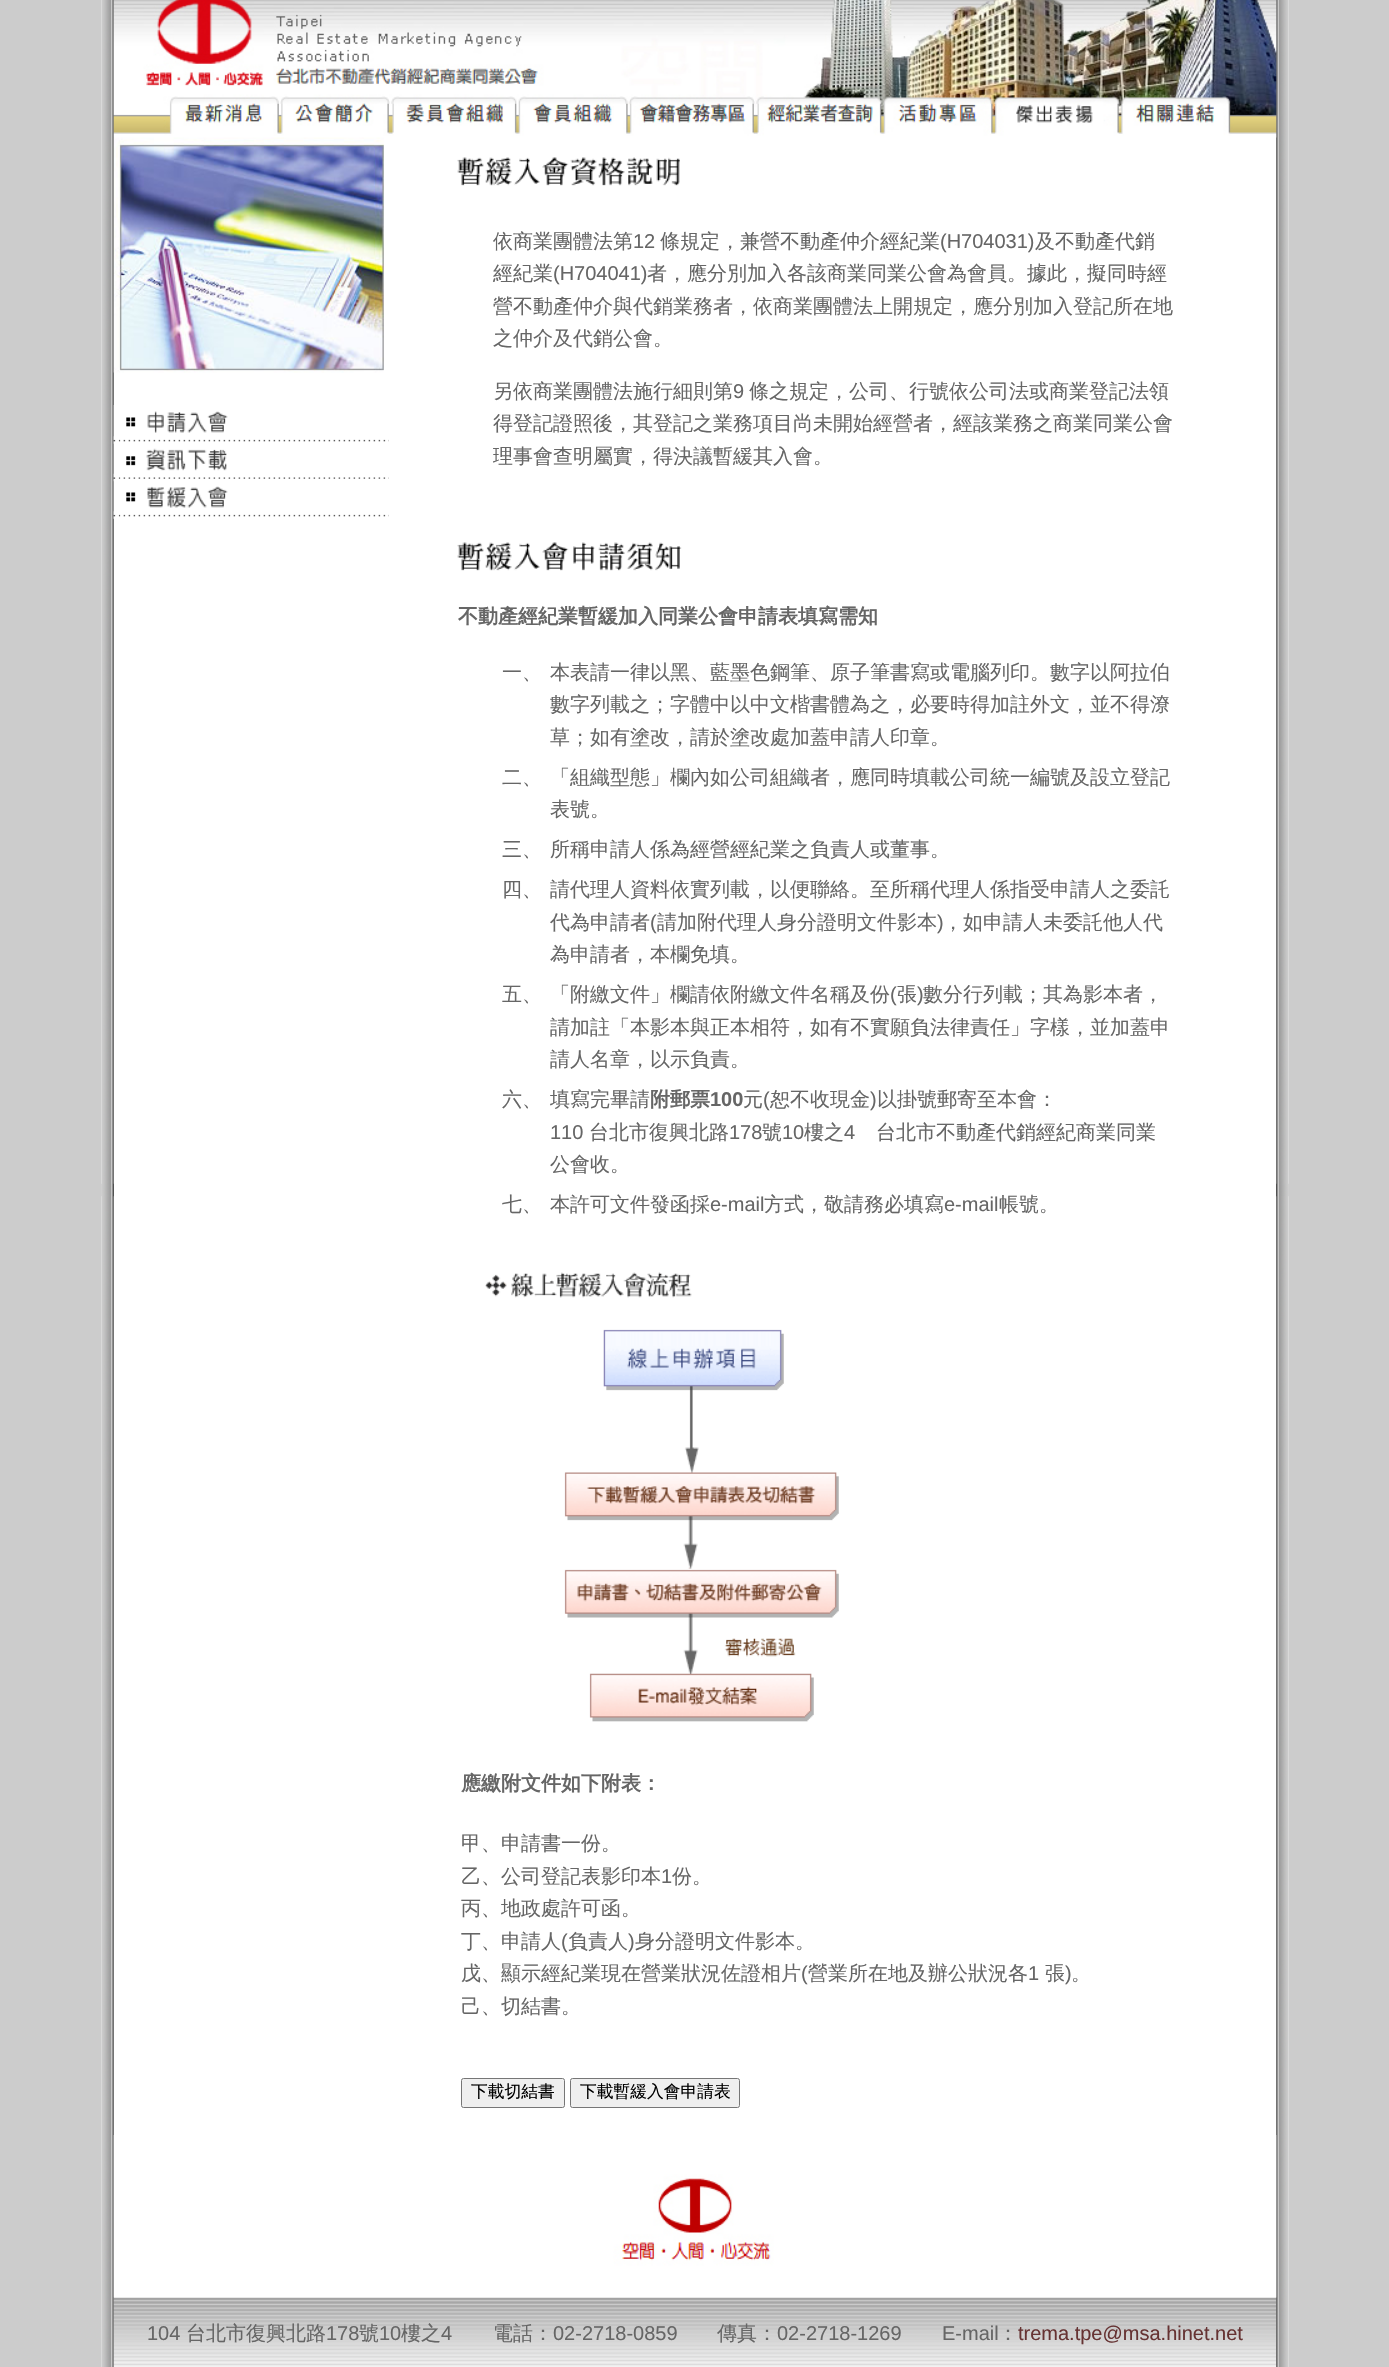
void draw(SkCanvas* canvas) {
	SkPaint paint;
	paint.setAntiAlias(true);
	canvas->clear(0xffcccccc);
	paint.setColor(0xffffffff);
	canvas->drawRect(SkRect::MakeXYWH(101, 0, 1188, 2367), paint);
	canvas->drawImageRect(SkImages::DeferredFromEncodedData(SkData::MakeFromFileName("img1.png")), SkRect::MakeXYWH(101, 0, 13, 2367), SkSamplingOptions());
	canvas->drawImageRect(SkImages::DeferredFromEncodedData(SkData::MakeFromFileName("img2.png")), SkRect::MakeXYWH(101, 1183, 13, 14), SkSamplingOptions());
	canvas->drawImageRect(SkImages::DeferredFromEncodedData(SkData::MakeFromFileName("img16.png")), SkRect::MakeXYWH(113, 2297, 1164, 70), SkSamplingOptions());
	canvas->drawImageRect(SkImages::DeferredFromEncodedData(SkData::MakeFromFileName("img17.png")), SkRect::MakeXYWH(1276, 0, 13, 2367), SkSamplingOptions());
	canvas->drawImageRect(SkImages::DeferredFromEncodedData(SkData::MakeFromFileName("img3.png")), SkRect::MakeXYWH(113, 0, 1164, 138), SkSamplingOptions());
	canvas->drawImageRect(SkImages::DeferredFromEncodedData(SkData::MakeFromFileName("img4.png")), SkRect::MakeXYWH(113, 137, 271, 236), SkSamplingOptions());
	canvas->drawImageRect(SkImages::DeferredFromEncodedData(SkData::MakeFromFileName("img6.png")), SkRect::MakeXYWH(113, 436, 276, 8), SkSamplingOptions());
	canvas->drawImageRect(SkImages::DeferredFromEncodedData(SkData::MakeFromFileName("img5.png")), SkRect::MakeXYWH(113, 405, 115, 32), SkSamplingOptions());
	canvas->drawImageRect(SkImages::DeferredFromEncodedData(SkData::MakeFromFileName("img7.png")), SkRect::MakeXYWH(113, 436, 6, 8), SkSamplingOptions());
	canvas->drawImageRect(SkImages::DeferredFromEncodedData(SkData::MakeFromFileName("img9.png")), SkRect::MakeXYWH(113, 473, 276, 9), SkSamplingOptions());
	canvas->drawImageRect(SkImages::DeferredFromEncodedData(SkData::MakeFromFileName("img8.png")), SkRect::MakeXYWH(113, 443, 114, 31), SkSamplingOptions());
	canvas->drawImageRect(SkImages::DeferredFromEncodedData(SkData::MakeFromFileName("img10.png")), SkRect::MakeXYWH(113, 473, 6, 9), SkSamplingOptions());
	canvas->drawImageRect(SkImages::DeferredFromEncodedData(SkData::MakeFromFileName("img6.png")), SkRect::MakeXYWH(113, 511, 276, 8), SkSamplingOptions());
	canvas->drawImageRect(SkImages::DeferredFromEncodedData(SkData::MakeFromFileName("img11.png")), SkRect::MakeXYWH(113, 481, 115, 31), SkSamplingOptions());
	canvas->drawImageRect(SkImages::DeferredFromEncodedData(SkData::MakeFromFileName("img7.png")), SkRect::MakeXYWH(113, 511, 6, 8), SkSamplingOptions());
	canvas->drawImageRect(SkImages::DeferredFromEncodedData(SkData::MakeFromFileName("img12.png")), SkRect::MakeXYWH(457, 157, 223, 29), SkSamplingOptions());
	SkFont f1(fontMgr->matchFamilyStyle("WenQuanYi Zen Hei", SkFontStyle(500, SkFontStyle::kNormal_Width, SkFontStyle::kUpright_Slant)), 20);
	f1.setSubpixel(true);
	paint.setColor(0xff666666);
	canvas->drawString("依商業團體法第", 493, 248, f1, paint);
	SkFont f2(fontMgr->matchFamilyStyle("Liberation Sans", SkFontStyle::Normal()), 20);
	f2.setSubpixel(true);
	canvas->drawString("12", 633, 248, f2, paint);
	canvas->drawString("條規定，兼營不動產仲介經紀業", 660, 248, f1, paint);
	canvas->drawString("(H704031)", 940, 248, f2, paint);
	canvas->drawString("及不動產代銷", 1035, 248, f1, paint);
	canvas->drawString("經紀業", 493, 280, f1, paint);
	canvas->drawString("(H704041)", 553, 280, f2, paint);
	canvas->drawString("者，應分別加入各該商業同業公會為會員。據此，擬同時經", 647, 280, f1, paint);
	canvas->drawString("營不動產仲介與代銷業務者，依商業團體法上開規定，應分別加入登記所在地", 493, 313, f1, paint);
	canvas->drawString("之仲介及代銷公會。", 493, 345, f1, paint);
	canvas->drawString("另依商業團體法施行細則第", 493, 398, f1, paint);
	canvas->drawString("9", 733, 398, f2, paint);
	canvas->drawString("條之規定，公司、行號依公司法或商業登記法領", 749, 398, f1, paint);
	canvas->drawString("得登記證照後，其登記之業務項目尚未開始經營者，經該業務之商業同業公會", 493, 430, f1, paint);
	canvas->drawString("理事會查明屬實，得決議暫緩其入會。", 493, 463, f1, paint);
	canvas->drawImageRect(SkImages::DeferredFromEncodedData(SkData::MakeFromFileName("img13.png")), SkRect::MakeXYWH(457, 542, 225, 29), SkSamplingOptions());
	SkFont f3(fontMgr->matchFamilyStyle("WenQuanYi Zen Hei", SkFontStyle::Bold()), 20);
	f3.setSubpixel(true);
	canvas->drawString("不動產經紀業暫緩加入同業公會申請表填寫需知", 458, 623, f3, paint);
	canvas->drawString("一、", 502, 679, f1, paint);
	canvas->drawString("本表請一律以黑、藍墨色鋼筆、原子筆書寫或電腦列印。數字以阿拉伯", 550, 679, f1, paint);
	canvas->drawString("數字列載之；字體中以中文楷書體為之，必要時得加註外文，並不得潦", 550, 711, f1, paint);
	canvas->drawString("草；如有塗改，請於塗改處加蓋申請人印章。", 550, 744, f1, paint);
	canvas->drawString("二、", 502, 784, f1, paint);
	canvas->drawString("「組織型態」欄內如公司組織者，應同時填載公司統一編號及設立登記", 550, 784, f1, paint);
	canvas->drawString("表號。", 550, 816, f1, paint);
	canvas->drawString("三、", 502, 856, f1, paint);
	canvas->drawString("所稱申請人係為經營經紀業之負責人或董事。", 550, 856, f1, paint);
	canvas->drawString("四、", 502, 896, f1, paint);
	canvas->drawString("請代理人資料依實列載，以便聯絡。至所稱代理人係指受申請人之委託", 550, 896, f1, paint);
	canvas->drawString("代為申請者", 550, 929, f1, paint);
	canvas->drawString("(", 650, 929, f2, paint);
	canvas->drawString("請加附代理人身分證明文件影本", 657, 929, f1, paint);
	canvas->drawString(")", 937, 929, f2, paint);
	canvas->drawString("，如申請人未委託他人代", 943, 929, f1, paint);
	canvas->drawString("為申請者，本欄免填。", 550, 961, f1, paint);
	canvas->drawString("五、", 502, 1001, f1, paint);
	canvas->drawString("「附繳文件」欄請依附繳文件名稱及份", 550, 1001, f1, paint);
	canvas->drawString("(", 890, 1001, f2, paint);
	canvas->drawString("張", 897, 1001, f1, paint);
	canvas->drawString(")", 917, 1001, f2, paint);
	canvas->drawString("數分行列載；其為影本者，", 923, 1001, f1, paint);
	canvas->drawString("請加註「本影本與正本相符，如有不實願負法律責任」字樣，並加蓋申", 550, 1034, f1, paint);
	canvas->drawString("請人名章，以示負責。", 550, 1066, f1, paint);
	canvas->drawString("六、", 502, 1106, f1, paint);
	canvas->drawString("填寫完畢請", 550, 1106, f1, paint);
	canvas->drawString("附郵票", 650, 1106, f3, paint);
	SkFont f4(fontMgr->matchFamilyStyle("Liberation Sans", SkFontStyle::Bold()), 20);
	f4.setSubpixel(true);
	canvas->drawString("100", 710, 1106, f4, paint);
	canvas->drawString("元", 743, 1106, f1, paint);
	canvas->drawString("(", 763, 1106, f2, paint);
	canvas->drawString("恕不收現金", 770, 1106, f1, paint);
	canvas->drawString(")", 870, 1106, f2, paint);
	canvas->drawString("以掛號郵寄至本會：", 877, 1106, f1, paint);
	canvas->drawString("110", 550, 1139, f2, paint);
	canvas->drawString("台北市復興北路", 589, 1139, f1, paint);
	canvas->drawString("178", 729, 1139, f2, paint);
	canvas->drawString("號", 762, 1139, f1, paint);
	canvas->drawString("10", 782, 1139, f2, paint);
	canvas->drawString("樓之", 804, 1139, f1, paint);
	canvas->drawString("4", 844, 1139, f2, paint);
	canvas->drawString("台北市不動產代銷經紀商業同業", 876, 1139, f1, paint);
	canvas->drawString("公會收。", 550, 1171, f1, paint);
	canvas->drawString("七、", 502, 1211, f1, paint);
	canvas->drawString("本許可文件發函採", 550, 1211, f1, paint);
	canvas->drawString("e-mail", 710, 1211, f2, paint);
	canvas->drawString("方式，敬請務必填寫", 764, 1211, f1, paint);
	canvas->drawString("e-mail", 944, 1211, f2, paint);
	canvas->drawString("帳號。", 999, 1211, f1, paint);
	canvas->drawImageRect(SkImages::DeferredFromEncodedData(SkData::MakeFromFileName("img14.png")), SkRect::MakeXYWH(485, 1272, 354, 450), SkSamplingOptions());
	canvas->drawString("應繳附文件如下附表：", 461, 1790, f3, paint);
	canvas->drawString("甲、申請書一份。", 461, 1850, f1, paint);
	canvas->drawString("乙、公司登記表影印本", 461, 1883, f1, paint);
	canvas->drawString("1", 661, 1883, f2, paint);
	canvas->drawString("份。", 672, 1883, f1, paint);
	canvas->drawString("丙、地政處許可函。", 461, 1915, f1, paint);
	canvas->drawString("丁、申請人", 461, 1948, f1, paint);
	canvas->drawString("(", 561, 1948, f2, paint);
	canvas->drawString("負責人", 568, 1948, f1, paint);
	canvas->drawString(")", 628, 1948, f2, paint);
	canvas->drawString("身分證明文件影本。", 635, 1948, f1, paint);
	canvas->drawString("戊、顯示經紀業現在營業狀況佐證相片", 461, 1980, f1, paint);
	canvas->drawString("(", 801, 1980, f2, paint);
	canvas->drawString("營業所在地及辦公狀況各", 808, 1980, f1, paint);
	canvas->drawString("1", 1028, 1980, f2, paint);
	canvas->drawString("張", 1045, 1980, f1, paint);
	canvas->drawString(")", 1065, 1980, f2, paint);
	canvas->drawString("。", 1071, 1980, f1, paint);
	canvas->drawString("己、切結書。", 461, 2013, f1, paint);
	paint.setColor(0xffefefef);
	canvas->drawRoundRect(SkRect::MakeXYWH(461.5, 2078.5, 103, 29), 2, 2, paint);
	paint.setStroke(true);
	paint.setStrokeWidth(1);
	paint.setColor(0xff767676);
	canvas->drawRoundRect(SkRect::MakeXYWH(461.5, 2078.5, 103, 29), 2, 2, paint);
	SkFont f5(fontMgr->matchFamilyStyle("WenQuanYi Zen Hei", SkFontStyle(500, SkFontStyle::kNormal_Width, SkFontStyle::kUpright_Slant)), 16.75);
	f5.setSubpixel(true);
	paint.setStroke(false);
	paint.setColor(0xff000000);
	canvas->drawString("下載切結書", 471, 2097, f5, paint);
	paint.setColor(0xffefefef);
	canvas->drawRoundRect(SkRect::MakeXYWH(570.5, 2078.5, 169, 29), 2, 2, paint);
	paint.setStroke(true);
	paint.setColor(0xff767676);
	canvas->drawRoundRect(SkRect::MakeXYWH(570.5, 2078.5, 169, 29), 2, 2, paint);
	paint.setStroke(false);
	paint.setColor(0xff000000);
	canvas->drawString("下載暫緩入會申請表", 580, 2097, f5, paint);
	canvas->drawImageRect(SkImages::DeferredFromEncodedData(SkData::MakeFromFileName("img15.png")), SkRect::MakeXYWH(113, 2135, 1164, 163), SkSamplingOptions());
	paint.setColor(0xff666666);
	canvas->drawString("104", 147, 2340, f2, paint);
	canvas->drawString("台北市復興北路", 186, 2340, f1, paint);
	canvas->drawString("178", 326, 2340, f2, paint);
	canvas->drawString("號", 359, 2340, f1, paint);
	canvas->drawString("10", 379, 2340, f2, paint);
	canvas->drawString("樓之", 401, 2340, f1, paint);
	canvas->drawString("4", 441, 2340, f2, paint);
	canvas->drawString("電話：", 493, 2340, f1, paint);
	canvas->drawString("02-2718-0859", 553, 2340, f2, paint);
	canvas->drawString("傳真：", 717, 2340, f1, paint);
	canvas->drawString("02-2718-1269", 777, 2340, f2, paint);
	canvas->drawString("E-mail", 942, 2340, f2, paint);
	canvas->drawString("：", 998, 2340, f1, paint);
	paint.setColor(0xff663333);
	canvas->drawString("trema.tpe@msa.hinet.net", 1018, 2340, f2, paint);
	canvas->drawImageRect(SkImages::DeferredFromEncodedData(SkData::MakeFromFileName("img18.png")), SkRect::MakeXYWH(1276, 1183, 13, 14), SkSamplingOptions());
}
